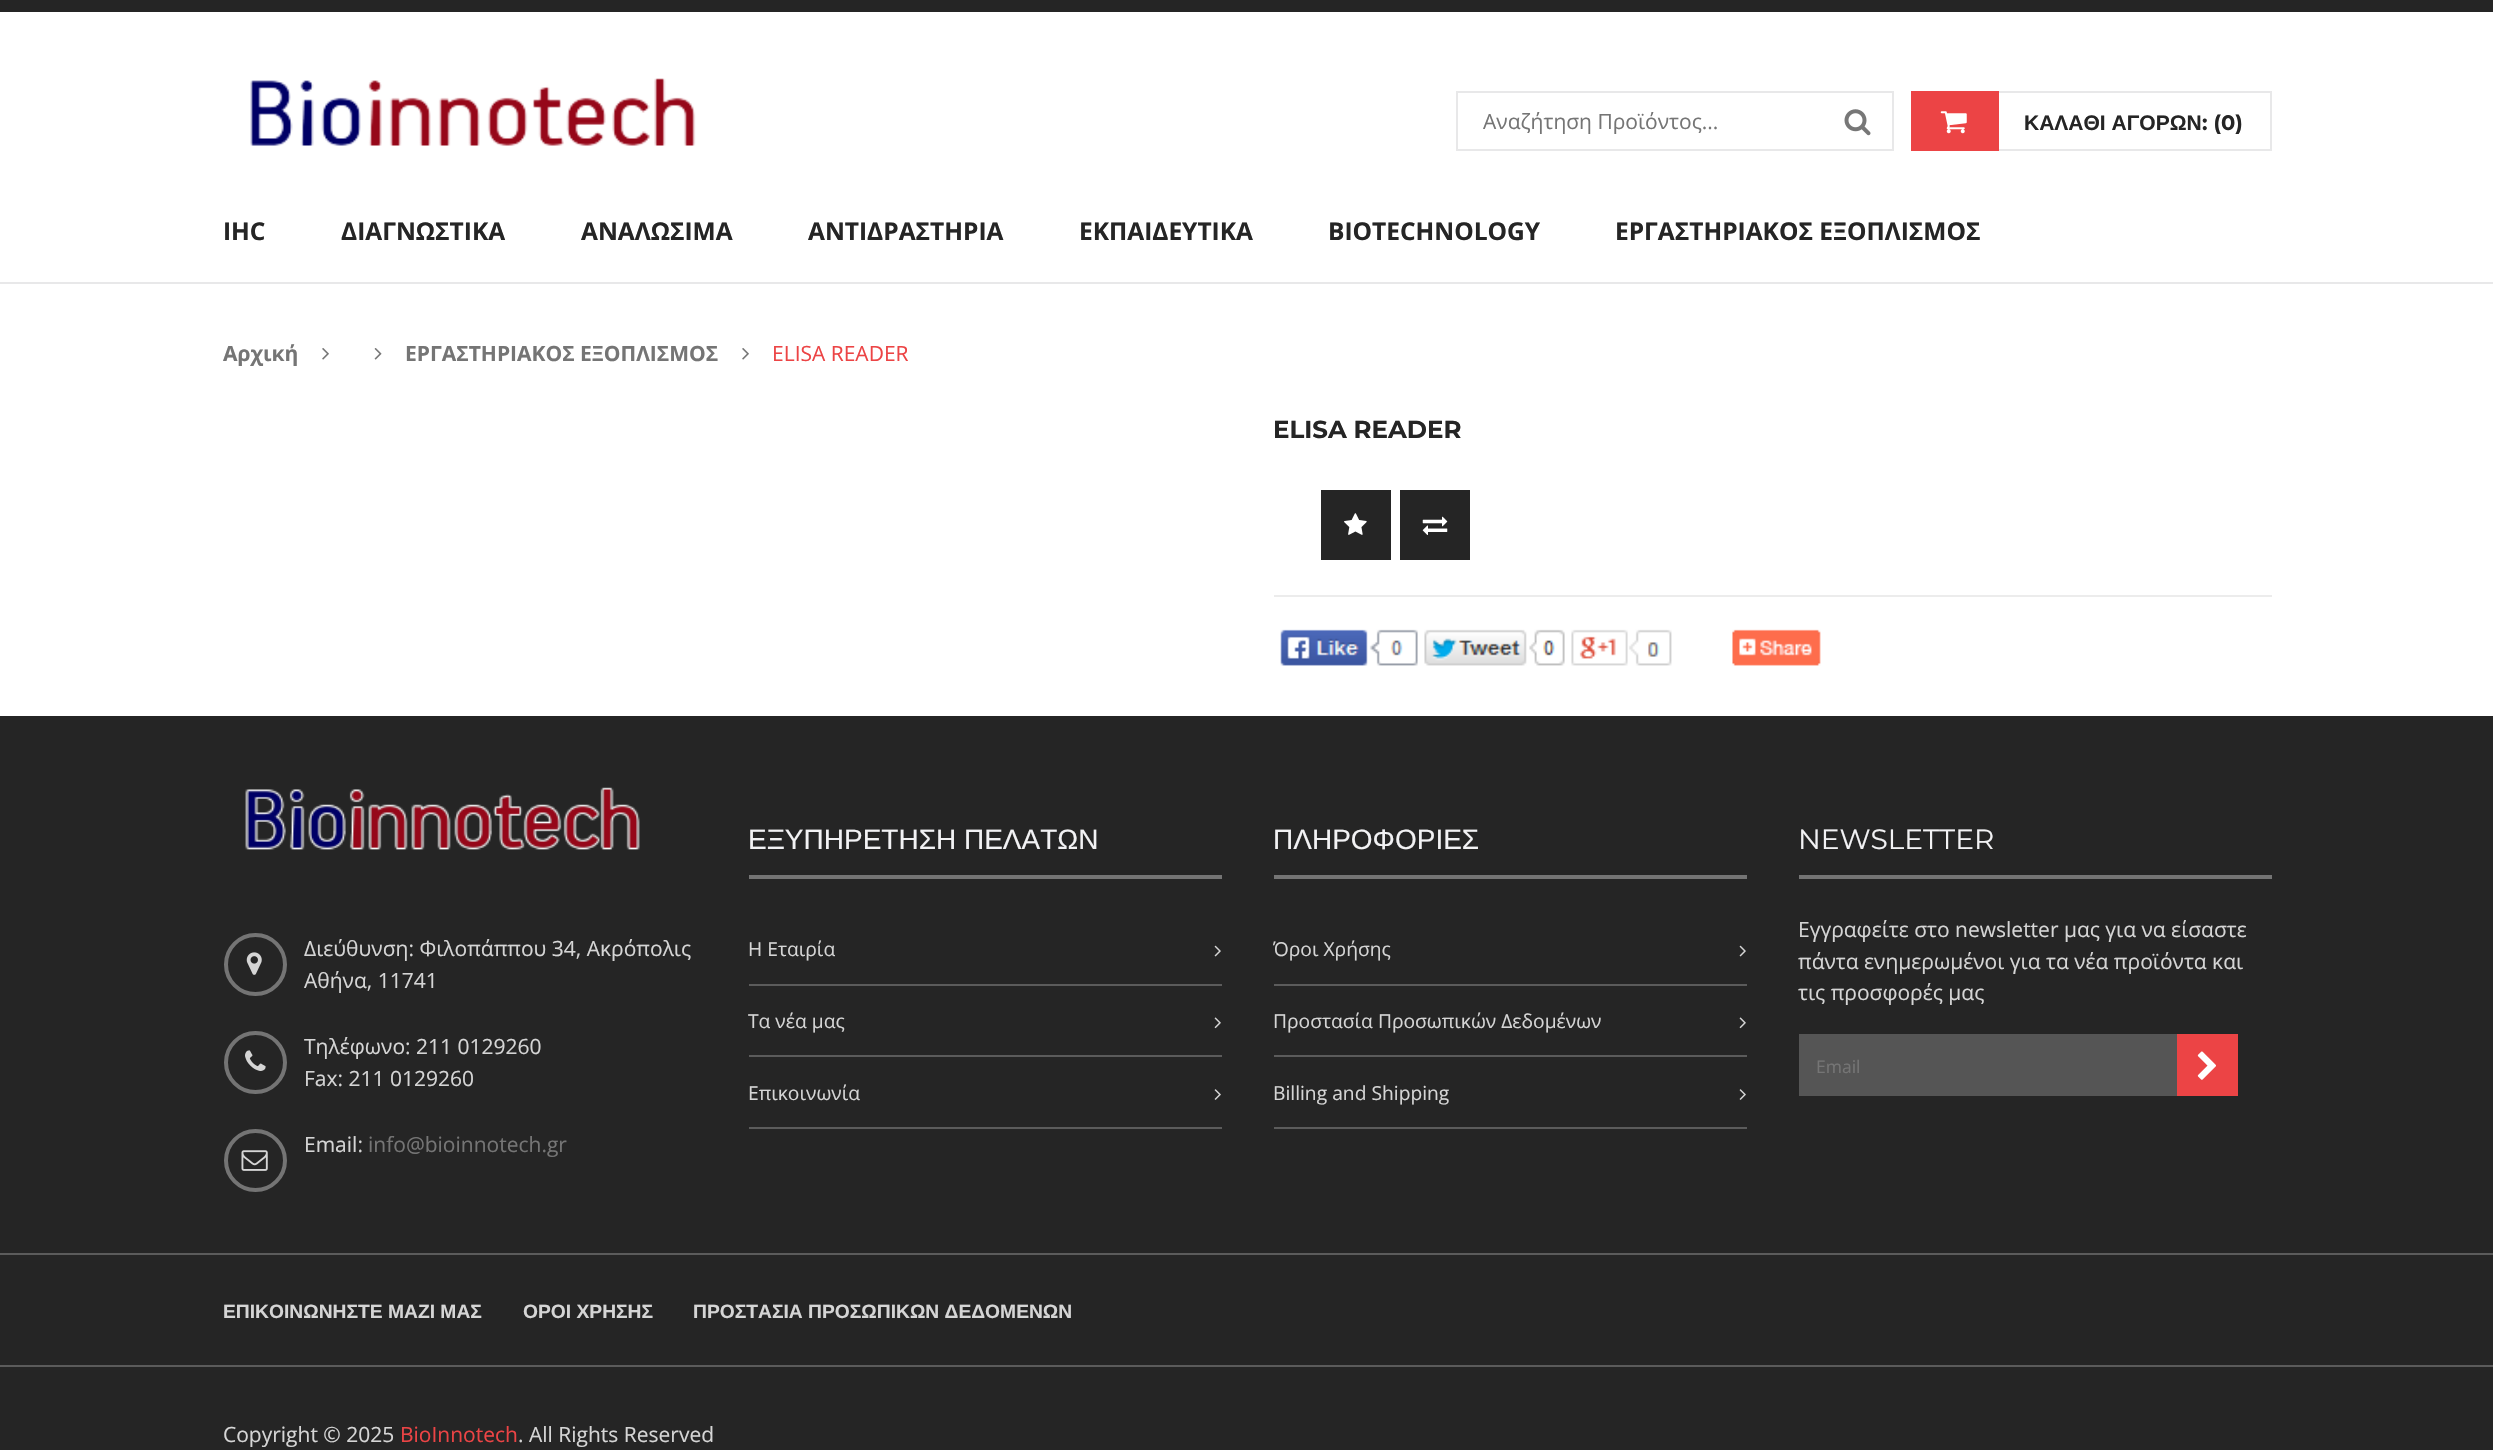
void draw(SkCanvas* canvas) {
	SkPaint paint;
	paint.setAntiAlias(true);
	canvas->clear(0xffffffff);
	paint.setColor(0xff252525);
	canvas->drawRect(SkRect::MakeXYWH(0, 0, 2493, 12), paint);
	canvas->drawImageRect(SkImages::DeferredFromEncodedData(SkData::MakeFromFileName("img1.png")), SkRect::MakeXYWH(250, 78, 446, 68), SkSamplingOptions());
	paint.setStroke(true);
	paint.setStrokeWidth(2);
	paint.setColor(0xffe8e8e9);
	canvas->drawRect(SkRect::MakeXYWH(1457, 92, 436, 58), paint);
	SkFont f1(fontMgr->matchFamilyStyle("Open Sans", SkFontStyle::Normal()), 21);
	f1.setSubpixel(true);
	paint.setStroke(false);
	paint.setColor(0xff757575);
	canvas->drawString("Αναζήτηση Προϊόντος...", 1483, 129, f1, paint);
	canvas->drawImageRect(SkImages::DeferredFromEncodedData(SkData::MakeFromFileName("img2.png")), SkRect::MakeXYWH(1844, 109, 27, 27), SkSamplingOptions());
	paint.setColor(0xffec4445);
	canvas->drawRect(SkRect::MakeXYWH(1911, 91, 88, 60), paint);
	canvas->drawImageRect(SkImages::DeferredFromEncodedData(SkData::MakeFromFileName("img3.png")), SkRect::MakeXYWH(1940, 111, 27, 23), SkSamplingOptions());
	paint.setColor(0xffe8e8e9);
	canvas->drawRect(SkRect::MakeXYWH(1999, 91, 273, 2), paint);
	canvas->drawRect(SkRect::MakeXYWH(2270, 91, 2, 60), paint);
	canvas->drawRect(SkRect::MakeXYWH(1999, 149, 273, 2), paint);
	SkFont f2(fontMgr->matchFamilyStyle("Liberation Sans", SkFontStyle::Bold()), 21);
	f2.setSubpixel(true);
	paint.setColor(0xff252525);
	canvas->drawString("ΚΑΛΑΘΙ ΑΓΟΡΩΝ", 2024, 130, f2, paint);
	SkFont f3(fontMgr->matchFamilyStyle("Montserrat", SkFontStyle::Bold()), 21);
	f3.setSubpixel(true);
	canvas->drawString(": (0)", 2202, 130, f3, paint);
	paint.setColor(0xffe8e8e9);
	canvas->drawRect(SkRect::MakeXYWH(0, 282, 2493, 2), paint);
	SkFont f4(fontMgr->matchFamilyStyle("Open Sans", SkFontStyle::Bold()), 24.5);
	f4.setSubpixel(true);
	paint.setColor(0xff252525);
	canvas->drawString("IHC", 223, 240, f4, paint);
	canvas->drawString("ΔΙΑΓΝΩΣΤΙΚΑ", 341, 240, f4, paint);
	canvas->drawString("ΑΝΑΛΩΣΙΜΑ", 581, 240, f4, paint);
	canvas->drawString("ΑΝΤΙΔΡΑΣΤΗΡΙΑ", 808, 240, f4, paint);
	canvas->drawString("ΕΚΠΑΙΔΕΥΤΙΚΑ", 1079, 240, f4, paint);
	canvas->drawString("BIOTECHNOLOGY", 1328, 240, f4, paint);
	canvas->drawString("ΕΡΓΑΣΤΗΡΙΑΚΟΣ ΕΞΟΠΛΙΣΜΟΣ", 1615, 240, f4, paint);
	SkFont f5(fontMgr->matchFamilyStyle("Open Sans", SkFontStyle::Bold()), 21);
	f5.setSubpixel(true);
	paint.setColor(0xff757575);
	canvas->drawString("Αρχική", 223, 361, f5, paint);
	canvas->drawImageRect(SkImages::DeferredFromEncodedData(SkData::MakeFromFileName("img4.png")), SkRect::MakeXYWH(322, 348, 7, 12), SkSamplingOptions());
	canvas->drawImageRect(SkImages::DeferredFromEncodedData(SkData::MakeFromFileName("img5.png")), SkRect::MakeXYWH(374, 348, 8, 12), SkSamplingOptions());
	canvas->drawString("ΕΡΓΑΣΤΗΡΙΑΚΟΣ ΕΞΟΠΛΙΣΜΟΣ", 405, 361, f5, paint);
	canvas->drawImageRect(SkImages::DeferredFromEncodedData(SkData::MakeFromFileName("img4.png")), SkRect::MakeXYWH(742, 348, 7, 12), SkSamplingOptions());
	paint.setColor(0xffec4445);
	canvas->drawString("ELISA READER", 772, 361, f1, paint);
	SkFont f6(fontMgr->matchFamilyStyle("Montserrat", SkFontStyle::Bold()), 24.5);
	f6.setSubpixel(true);
	paint.setColor(0xff252525);
	canvas->drawString("ELISA READER", 1273, 438, f6, paint);
	canvas->drawRect(SkRect::MakeXYWH(1321, 490, 70, 70), paint);
	canvas->drawImageRect(SkImages::DeferredFromEncodedData(SkData::MakeFromFileName("img6.png")), SkRect::MakeXYWH(1344, 513, 23, 22), SkSamplingOptions());
	canvas->drawRect(SkRect::MakeXYWH(1400, 490, 70, 70), paint);
	canvas->drawImageRect(SkImages::DeferredFromEncodedData(SkData::MakeFromFileName("img7.png")), SkRect::MakeXYWH(1422, 516, 26, 19), SkSamplingOptions());
	paint.setColor(0xffececec);
	canvas->drawRect(SkRect::MakeXYWH(1274, 595, 998, 2), paint);
	canvas->drawImageRect(SkImages::DeferredFromEncodedData(SkData::MakeFromFileName("img8.png")), SkRect::MakeXYWH(1280, 629, 541, 37), SkSamplingOptions());
	paint.setColor(0xff252525);
	canvas->drawRect(SkRect::MakeXYWH(0, 716, 2493, 734), paint);
	canvas->drawImageRect(SkImages::DeferredFromEncodedData(SkData::MakeFromFileName("img9.png")), SkRect::MakeXYWH(245, 787, 395, 63), SkSamplingOptions());
	paint.setStroke(true);
	paint.setStrokeWidth(4);
	paint.setColor(0xff747474);
	canvas->drawCircle(255.5, 964.5, 29.5, paint);
	canvas->drawImageRect(SkImages::DeferredFromEncodedData(SkData::MakeFromFileName("img10.png")), SkRect::MakeXYWH(246, 952, 16, 23), SkSamplingOptions());
	paint.setStroke(false);
	paint.setColor(0xffd5d5d5);
	canvas->drawString("Διεύθυνση: Φιλοπάππου 34, Ακρόπολις", 304, 956, f1, paint);
	canvas->drawString("Αθήνα, 11741", 304, 988, f1, paint);
	paint.setStroke(true);
	paint.setColor(0xff747474);
	canvas->drawCircle(255.5, 1062.5, 29.5, paint);
	canvas->drawImageRect(SkImages::DeferredFromEncodedData(SkData::MakeFromFileName("img11.png")), SkRect::MakeXYWH(245, 1050, 21, 21), SkSamplingOptions());
	paint.setStroke(false);
	paint.setColor(0xffd5d5d5);
	canvas->drawString("Τηλέφωνο: 211 0129260", 304, 1054, f1, paint);
	canvas->drawString("Fax: 211 0129260", 304, 1086, f1, paint);
	paint.setStroke(true);
	paint.setColor(0xff747474);
	canvas->drawCircle(255.5, 1160.5, 29.5, paint);
	canvas->drawImageRect(SkImages::DeferredFromEncodedData(SkData::MakeFromFileName("img12.png")), SkRect::MakeXYWH(241, 1150, 27, 21), SkSamplingOptions());
	paint.setStroke(false);
	paint.setColor(0xffd5d5d5);
	canvas->drawString("Email:", 304, 1152, f1, paint);
	paint.setColor(0xff757575);
	canvas->drawString("info@bioinnotech.gr", 368, 1152, f1, paint);
	paint.setColor(0xff747474);
	canvas->drawRect(SkRect::MakeXYWH(749, 875, 473, 4), paint);
	SkFont f7(fontMgr->matchFamilyStyle("Liberation Sans", SkFontStyle::Normal()), 28);
	f7.setSubpixel(true);
	paint.setColor(0xfff2f2f4);
	canvas->drawString("ΕΞΥΠΗΡΕΤΗΣΗ ΠΕΛΑΤΩΝ", 748, 849, f7, paint);
	paint.setColor(0xff5b5b5b);
	canvas->drawRect(SkRect::MakeXYWH(749, 984, 473, 2), paint);
	SkFont f8(fontMgr->matchFamilyStyle("Open Sans", SkFontStyle::Normal()), 19.25);
	f8.setSubpixel(true);
	paint.setColor(0xffd5d5d5);
	canvas->drawString("Η Εταιρία", 748, 956, f8, paint);
	canvas->drawImageRect(SkImages::DeferredFromEncodedData(SkData::MakeFromFileName("img13.png")), SkRect::MakeXYWH(1214, 945, 7, 12), SkSamplingOptions());
	paint.setColor(0xff5b5b5b);
	canvas->drawRect(SkRect::MakeXYWH(749, 1055, 473, 2), paint);
	paint.setColor(0xffd5d5d5);
	canvas->drawString("Τα νέα μας", 748, 1028, f8, paint);
	canvas->drawImageRect(SkImages::DeferredFromEncodedData(SkData::MakeFromFileName("img14.png")), SkRect::MakeXYWH(1214, 1017, 7, 12), SkSamplingOptions());
	paint.setColor(0xff5b5b5b);
	canvas->drawRect(SkRect::MakeXYWH(749, 1127, 473, 2), paint);
	paint.setColor(0xffd5d5d5);
	canvas->drawString("Επικοινωνία", 748, 1100, f8, paint);
	canvas->drawImageRect(SkImages::DeferredFromEncodedData(SkData::MakeFromFileName("img15.png")), SkRect::MakeXYWH(1214, 1089, 7, 11), SkSamplingOptions());
	paint.setColor(0xff747474);
	canvas->drawRect(SkRect::MakeXYWH(1274, 875, 473, 4), paint);
	paint.setColor(0xfff2f2f4);
	canvas->drawString("ΠΛΗΡΟΦΟΡΙΕΣ", 1273, 849, f7, paint);
	paint.setColor(0xff5b5b5b);
	canvas->drawRect(SkRect::MakeXYWH(1274, 984, 473, 2), paint);
	paint.setColor(0xffd5d5d5);
	canvas->drawString("Όροι Χρήσης", 1273, 956, f8, paint);
	canvas->drawImageRect(SkImages::DeferredFromEncodedData(SkData::MakeFromFileName("img13.png")), SkRect::MakeXYWH(1739, 945, 7, 12), SkSamplingOptions());
	paint.setColor(0xff5b5b5b);
	canvas->drawRect(SkRect::MakeXYWH(1274, 1055, 473, 2), paint);
	paint.setColor(0xffd5d5d5);
	canvas->drawString("Προστασία Προσωπικών Δεδομένων", 1273, 1028, f8, paint);
	canvas->drawImageRect(SkImages::DeferredFromEncodedData(SkData::MakeFromFileName("img14.png")), SkRect::MakeXYWH(1739, 1017, 7, 12), SkSamplingOptions());
	paint.setColor(0xff5b5b5b);
	canvas->drawRect(SkRect::MakeXYWH(1274, 1127, 473, 2), paint);
	paint.setColor(0xffd5d5d5);
	canvas->drawString("Billing and Shipping", 1273, 1100, f8, paint);
	canvas->drawImageRect(SkImages::DeferredFromEncodedData(SkData::MakeFromFileName("img15.png")), SkRect::MakeXYWH(1739, 1089, 7, 11), SkSamplingOptions());
	paint.setColor(0xff747474);
	canvas->drawRect(SkRect::MakeXYWH(1799, 875, 473, 4), paint);
	SkFont f9(fontMgr->matchFamilyStyle("Montserrat", SkFontStyle::Normal()), 28);
	f9.setSubpixel(true);
	paint.setColor(0xfff2f2f4);
	canvas->drawString("NEWSLETTER", 1798, 849, f9, paint);
	paint.setColor(0xffd5d5d5);
	canvas->drawString("Εγγραφείτε στο newsletter μας για να είσαστε", 1798, 937, f1, paint);
	canvas->drawString("πάντα ενημερωμένοι για τα νέα προϊόντα και", 1798, 969, f1, paint);
	canvas->drawString("τις προσφορές μας", 1798, 1000, f1, paint);
	paint.setColor(0xff555555);
	canvas->drawRect(SkRect::MakeXYWH(1799, 1034, 378, 62), paint);
	SkFont f10(fontMgr->matchFamilyStyle("Open Sans", SkFontStyle::Normal()), 17.5);
	f10.setSubpixel(true);
	paint.setColor(0xff757575);
	canvas->drawString("Email", 1816, 1073, f10, paint);
	paint.setColor(0xffec4445);
	canvas->drawRect(SkRect::MakeXYWH(2177, 1034, 61, 62), paint);
	canvas->drawImageRect(SkImages::DeferredFromEncodedData(SkData::MakeFromFileName("img16.png")), SkRect::MakeXYWH(2197, 1051, 19, 29), SkSamplingOptions());
	paint.setColor(0xff5b5b5b);
	canvas->drawRect(SkRect::MakeXYWH(0, 1253, 2493, 2), paint);
	canvas->drawRect(SkRect::MakeXYWH(0, 1365, 2493, 2), paint);
	SkFont f11(fontMgr->matchFamilyStyle("Liberation Sans", SkFontStyle::Bold()), 19.25);
	f11.setSubpixel(true);
	paint.setColor(0xffd5d5d5);
	canvas->drawString("ΕΠΙΚΟΙΝΩΝΗΣΤΕ ΜΑΖΙ ΜΑΣ", 223, 1318, f11, paint);
	canvas->drawString("ΟΡΟΙ ΧΡΗΣΗΣ", 523, 1318, f11, paint);
	canvas->drawString("ΠΡΟΣΤΑΣΙΑ ΠΡΟΣΩΠΙΚΩΝ ΔΕΔΟΜΕΝΩΝ", 693, 1318, f11, paint);
	canvas->drawString("Copyright © 2025", 223, 1442, f1, paint);
	paint.setColor(0xffec4445);
	canvas->drawString("BioInnotech", 400, 1442, f1, paint);
	paint.setColor(0xffd5d5d5);
	canvas->drawString(". All Rights Reserved", 518, 1442, f1, paint);
}
